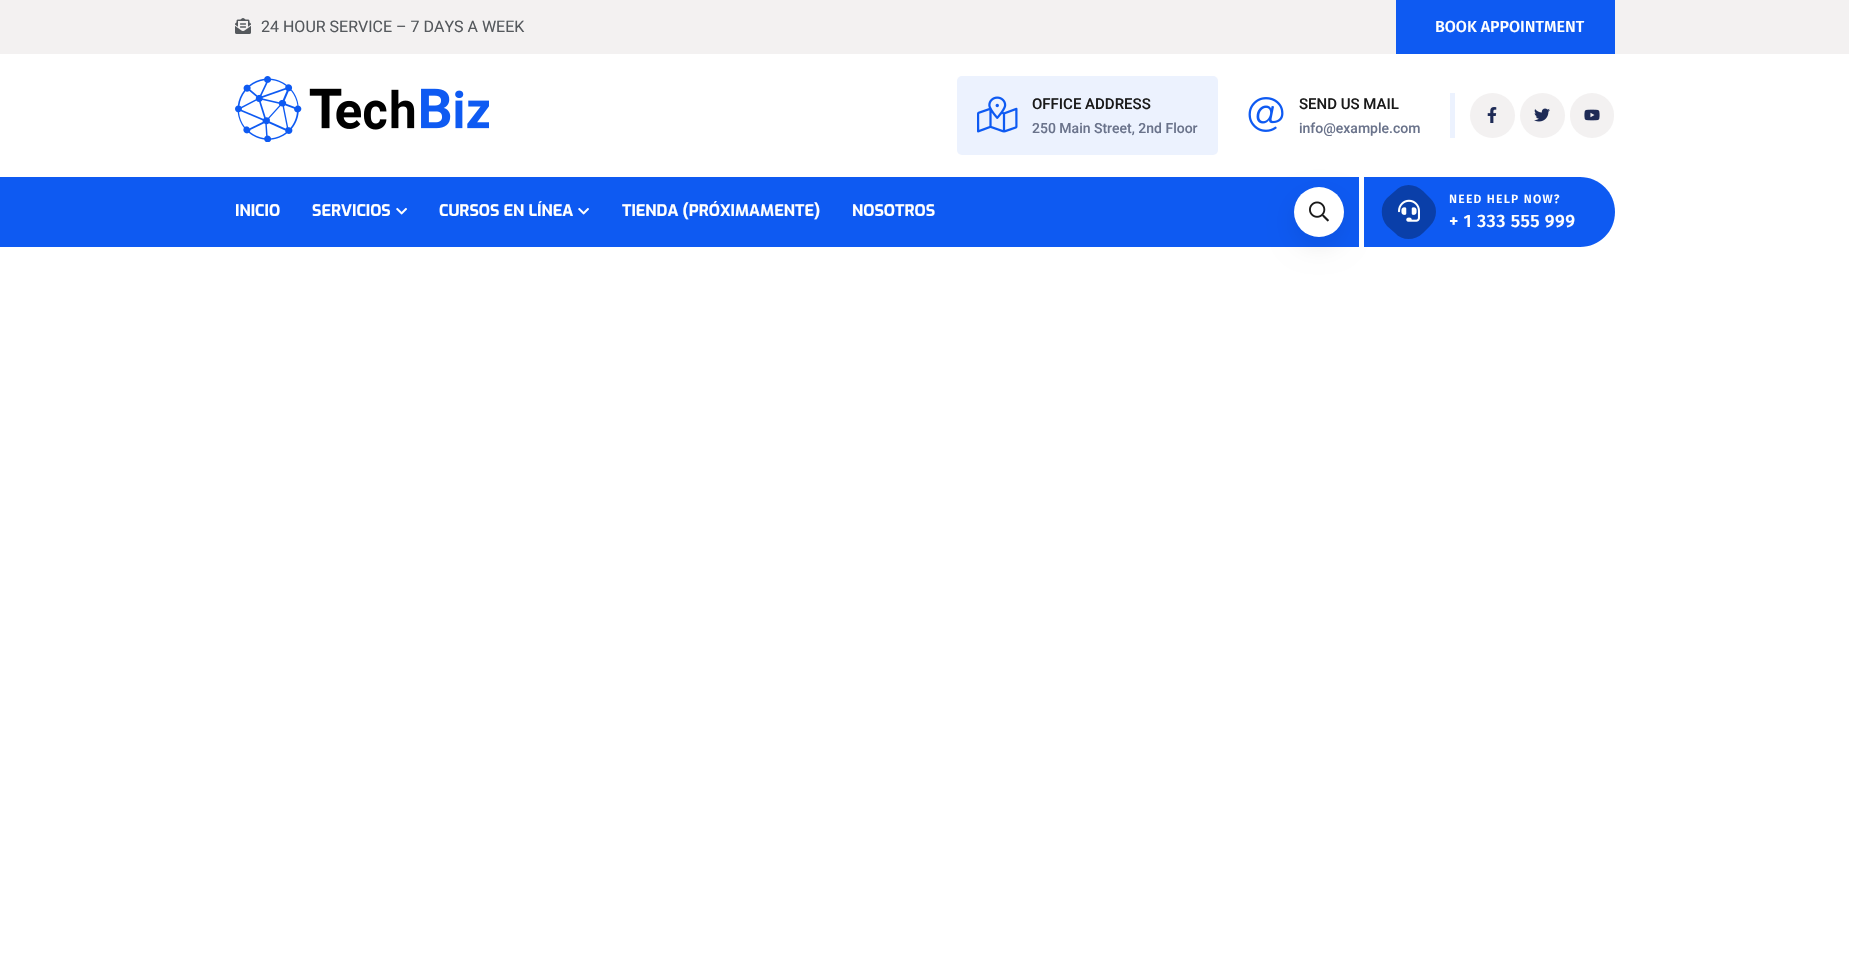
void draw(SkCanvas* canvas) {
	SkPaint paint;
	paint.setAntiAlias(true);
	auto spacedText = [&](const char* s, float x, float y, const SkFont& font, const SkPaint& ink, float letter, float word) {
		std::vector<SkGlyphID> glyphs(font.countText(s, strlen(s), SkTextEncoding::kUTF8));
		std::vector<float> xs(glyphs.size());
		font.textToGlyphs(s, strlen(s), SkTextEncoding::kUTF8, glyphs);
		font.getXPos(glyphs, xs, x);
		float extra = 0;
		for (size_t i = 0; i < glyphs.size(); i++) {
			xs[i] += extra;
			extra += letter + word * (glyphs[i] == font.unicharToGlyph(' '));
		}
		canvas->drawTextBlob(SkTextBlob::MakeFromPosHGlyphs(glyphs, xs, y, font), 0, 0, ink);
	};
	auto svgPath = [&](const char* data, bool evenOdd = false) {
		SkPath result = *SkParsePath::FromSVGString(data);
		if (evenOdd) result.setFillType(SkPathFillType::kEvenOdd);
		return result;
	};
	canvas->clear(0xffffffff);
	paint.setColor(0xfff3f1f1);
	canvas->drawRect(SkRect::MakeXYWH(0, 0, 1849, 54), paint);
	canvas->drawImageRect(SkImages::DeferredFromEncodedData(SkData::MakeFromFileName("img1.png")), SkRect::MakeXYWH(235, 18, 16, 16), SkSamplingOptions());
	SkFont f1(fontMgr->matchFamilyStyle("Roboto", SkFontStyle::Normal()), 16);
	f1.setSubpixel(true);
	paint.setColor(0xff55595d);
	canvas->drawString("24 HOUR SERVICE – 7 DAYS A WEEK", 261, 32, f1, paint);
	paint.setColor(0xff0e5af2);
	canvas->drawRect(SkRect::MakeXYWH(1396, 0, 219, 54), paint);
	SkFont f2(fontMgr->matchFamilyStyle("Fira Sans", SkFontStyle(500, SkFontStyle::kNormal_Width, SkFontStyle::kUpright_Slant)), 16);
	f2.setSubpixel(true);
	paint.setColor(0xffffffff);
	canvas->drawString("BOOK APPOINTMENT", 1435, 32, f2, paint);
	canvas->drawImageRect(SkImages::DeferredFromEncodedData(SkData::MakeFromFileName("img2.png")), SkRect::MakeXYWH(235, 76, 254, 66), SkSamplingOptions());
	paint.setColor(0xffecf2fe);
	canvas->drawRoundRect(SkRect::MakeXYWH(957, 76, 261, 79), 5, 5, paint);
	canvas->drawImageRect(SkImages::DeferredFromEncodedData(SkData::MakeFromFileName("img3.png")), SkRect::MakeXYWH(977, 96, 41, 37), SkSamplingOptions());
	SkFont f3(fontMgr->matchFamilyStyle("Roboto", SkFontStyle(500, SkFontStyle::kNormal_Width, SkFontStyle::kUpright_Slant)), 15);
	f3.setSubpixel(true);
	paint.setColor(0xff1a1a1a);
	canvas->drawString("OFFICE ADDRESS", 1032, 109, f3, paint);
	SkFont f4(fontMgr->matchFamilyStyle("Roboto", SkFontStyle(500, SkFontStyle::kNormal_Width, SkFontStyle::kUpright_Slant)), 14);
	f4.setSubpixel(true);
	paint.setColor(0xff6a738b);
	canvas->drawString("250 Main Street, 2nd Floor", 1032, 133, f4, paint);
	canvas->drawImageRect(SkImages::DeferredFromEncodedData(SkData::MakeFromFileName("img4.png")), SkRect::MakeXYWH(1248, 97, 36, 35), SkSamplingOptions());
	paint.setColor(0xff1a1a1a);
	canvas->drawString("SEND US MAIL", 1299, 109, f3, paint);
	paint.setColor(0xff6a738b);
	canvas->drawString("info@example.com", 1299, 133, f4, paint);
	paint.setColor(0xffecf2fe);
	canvas->drawRect(SkRect::MakeXYWH(1450, 93, 5, 45), paint);
	paint.setColor(0xfff3f1f1);
	canvas->drawCircle(1492.5, 115.5, 22.5, paint);
	canvas->drawImageRect(SkImages::DeferredFromEncodedData(SkData::MakeFromFileName("img5.png")), SkRect::MakeXYWH(1487, 107, 10, 16), SkSamplingOptions());
	canvas->drawCircle(1542.5, 115.5, 22.5, paint);
	canvas->drawImageRect(SkImages::DeferredFromEncodedData(SkData::MakeFromFileName("img6.png")), SkRect::MakeXYWH(1534, 108, 16, 14), SkSamplingOptions());
	canvas->drawRoundRect(SkRect::MakeXYWH(1570, 93, 44, 45), 22, 22, paint);
	canvas->drawImageRect(SkImages::DeferredFromEncodedData(SkData::MakeFromFileName("img7.png")), SkRect::MakeXYWH(1584, 109, 16, 12), SkSamplingOptions());
	paint.setColor(0xff0e5af2);
	canvas->drawRect(SkRect::MakeXYWH(0, 177, 1359, 70), paint);
	paint.setColor(0x14000000);
	paint.setMaskFilter(SkMaskFilter::MakeBlur(kNormal_SkBlurStyle, 12));
	canvas->drawRoundRect(SkRect::MakeXYWH(1294, 197, 50, 50), 25, 25, paint);
	paint.setMaskFilter(nullptr);
	paint.setColor(0xffffffff);
	canvas->drawCircle(1319, 212, 25, paint);
	canvas->drawImageRect(SkImages::DeferredFromEncodedData(SkData::MakeFromFileName("img8.png")), SkRect::MakeXYWH(1309, 201, 20, 21), SkSamplingOptions());
	SkFont f5(fontMgr->matchFamilyStyle("Exo", SkFontStyle::Bold()), 16);
	f5.setSubpixel(true);
	canvas->drawString("INICIO", 235, 216, f5, paint);
	canvas->drawString("SERVICIOS", 312, 216, f5, paint);
	canvas->drawImageRect(SkImages::DeferredFromEncodedData(SkData::MakeFromFileName("img9.png")), SkRect::MakeXYWH(396, 207, 11, 8), SkSamplingOptions());
	canvas->drawString("CURSOS EN LÍNEA", 439, 216, f5, paint);
	canvas->drawImageRect(SkImages::DeferredFromEncodedData(SkData::MakeFromFileName("img9.png")), SkRect::MakeXYWH(578, 207, 11, 8), SkSamplingOptions());
	canvas->drawString("TIENDA (PRÓXIMAMENTE)", 622, 216, f5, paint);
	canvas->drawString("NOSOTROS", 852, 216, f5, paint);
	paint.setColor(0xff0e5af2);
	canvas->drawPath(svgPath("M1364 177H1580C1599.5 177 1615 192.5 1615 212C1615 231.5 1599.5 247 1580 247H1364Z"), paint);
	paint.setColor(0xff0a3fa9);
	canvas->drawPath(svgPath("M1423 191L1430 198C1438 205 1438 218 1430 226L1423 233C1415 241 1402 241 1395 233L1387 226C1380 218 1380 205 1387 198L1395 191C1402 183 1415 183 1423 191Z"), paint);
	canvas->drawImageRect(SkImages::DeferredFromEncodedData(SkData::MakeFromFileName("img10.png")), SkRect::MakeXYWH(1398, 199, 22, 23), SkSamplingOptions());
	SkFont f6(fontMgr->matchFamilyStyle("Fira Sans", SkFontStyle(500, SkFontStyle::kNormal_Width, SkFontStyle::kUpright_Slant)), 12);
	f6.setSubpixel(true);
	paint.setColor(0xffffffff);
	spacedText("NEED HELP NOW?", 1449, 203, f6, paint, 1.25, 0);
	SkFont f7(fontMgr->matchFamilyStyle("Fira Sans", SkFontStyle(500, SkFontStyle::kNormal_Width, SkFontStyle::kUpright_Slant)), 18);
	f7.setSubpixel(true);
	spacedText("+ 1 333 555 999", 1449, 227, f7, paint, 0.4, 0);
}
